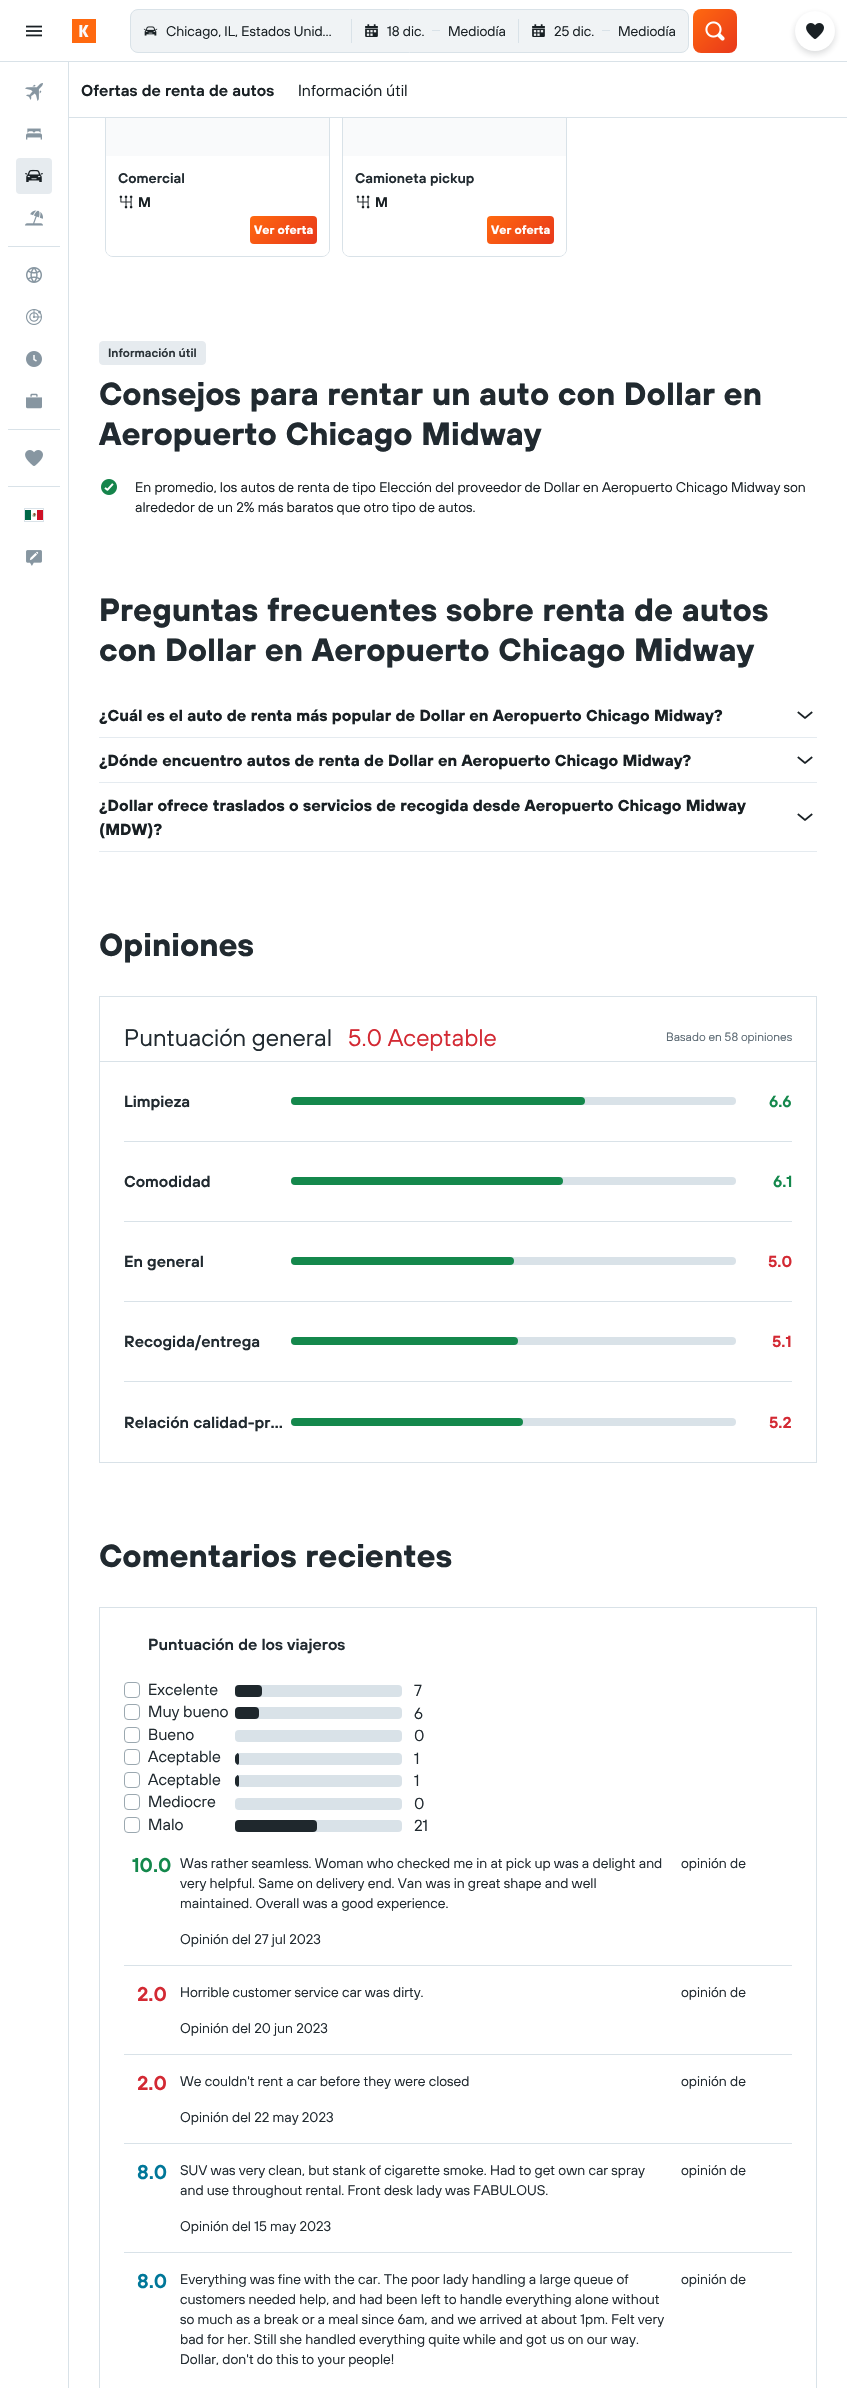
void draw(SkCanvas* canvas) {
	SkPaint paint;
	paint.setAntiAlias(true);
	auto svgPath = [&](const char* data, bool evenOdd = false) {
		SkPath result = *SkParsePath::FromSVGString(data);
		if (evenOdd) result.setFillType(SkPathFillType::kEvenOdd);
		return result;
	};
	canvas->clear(0xffffffff);
	paint.setStroke(true);
	paint.setStrokeWidth(1);
	paint.setColor(0xffd9e2e8);
	canvas->drawRoundRect(SkRect::MakeXYWH(105.5, 23.5, 224, 233), 7.5, 7.5, paint);
	canvas->drawRoundRect(SkRect::MakeXYWH(342.5, 23.5, 224, 233), 7.5, 7.5, paint);
	paint.setStroke(false);
	paint.setColor(0xffffffff);
	canvas->drawRect(SkRect::MakeXYWH(105, 23, 462, 38), paint);
	paint.setColor(0xffd9e2e8);
	canvas->drawRect(SkRect::MakeXYWH(0, 61, 847, 1), paint);
	canvas->drawImageRect(SkImages::DeferredFromEncodedData(SkData::MakeFromFileName("img1.png")), SkRect::MakeXYWH(26, 25, 16, 12), SkSamplingOptions());
	canvas->drawImageRect(SkImages::DeferredFromEncodedData(SkData::MakeFromFileName("img2.png")), SkRect::MakeXYWH(72, 19, 24, 24), SkSamplingOptions());
	paint.setColor(0xfff0f3f5);
	canvas->drawRoundRect(SkRect::MakeXYWH(130.5, 9.5, 558, 43), 7.5, 7.5, paint);
	paint.setStroke(true);
	paint.setColor(0xffd9e2e8);
	canvas->drawRoundRect(SkRect::MakeXYWH(130.5, 9.5, 558, 43), 7.5, 7.5, paint);
	canvas->drawImageRect(SkImages::DeferredFromEncodedData(SkData::MakeFromFileName("img3.png")), SkRect::MakeXYWH(143, 26, 15, 10), SkSamplingOptions());
	SkFont f1(fontMgr->matchFamilyStyle("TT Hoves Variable", SkFontStyle::Normal()), 14);
	f1.setSubpixel(true);
	paint.setStroke(false);
	paint.setColor(0xff192024);
	canvas->drawString("Chicago, IL, Estados Unid…", 166, 36, f1, paint);
	paint.setColor(0xffd9e2e8);
	canvas->drawRect(SkRect::MakeXYWH(351, 19, 1, 24), paint);
	canvas->drawImageRect(SkImages::DeferredFromEncodedData(SkData::MakeFromFileName("img4.png")), SkRect::MakeXYWH(365, 24, 13, 13), SkSamplingOptions());
	paint.setColor(0xff192024);
	canvas->drawString("18 dic.", 387, 36, f1, paint);
	paint.setColor(0xffd9e2e8);
	canvas->drawRect(SkRect::MakeXYWH(432, 30, 8, 1), paint);
	paint.setColor(0xff192024);
	canvas->drawString("Mediodía", 448, 36, f1, paint);
	paint.setColor(0xffd9e2e8);
	canvas->drawRect(SkRect::MakeXYWH(518, 19, 1, 24), paint);
	canvas->drawImageRect(SkImages::DeferredFromEncodedData(SkData::MakeFromFileName("img4.png")), SkRect::MakeXYWH(532, 24, 13, 13), SkSamplingOptions());
	paint.setColor(0xff192024);
	canvas->drawString("25 dic.", 554, 36, f1, paint);
	paint.setColor(0xffd9e2e8);
	canvas->drawRect(SkRect::MakeXYWH(602, 30, 8, 1), paint);
	paint.setColor(0xff192024);
	canvas->drawString("Mediodía", 618, 36, f1, paint);
	{
		const SkColor colors[] = {0xffff690f, 0xffe8381b};
		const float stops[] = {0, 1};
		const SkPoint ends[] = {{693, 9}, {737, 53}};
		paint.setShader(SkGradientShader::MakeLinear(ends, colors, stops, 2, SkTileMode::kClamp));
		paint.setAlpha(255);
	}
	canvas->drawRoundRect(SkRect::MakeXYWH(693, 9, 44, 44), 8, 8, paint);
	canvas->drawImageRect(SkImages::DeferredFromEncodedData(SkData::MakeFromFileName("img5.png")), SkRect::MakeXYWH(705, 21, 20, 20), SkSamplingOptions());
	paint.setShader(nullptr);
	paint.setColor(0x29192024);
	paint.setMaskFilter(SkMaskFilter::MakeBlur(kNormal_SkBlurStyle, 3));
	canvas->drawRoundRect(SkRect::MakeXYWH(795, 14, 40, 40), 20, 20, paint);
	paint.setMaskFilter(nullptr);
	paint.setColor(0xffffffff);
	canvas->drawCircle(815, 31, 20, paint);
	canvas->drawImageRect(SkImages::DeferredFromEncodedData(SkData::MakeFromFileName("img6.png")), SkRect::MakeXYWH(806, 23, 18, 16), SkSamplingOptions());
	paint.setColor(0xffd9e2e8);
	canvas->drawRect(SkRect::MakeXYWH(68, 62, 1, 2326), paint);
	canvas->drawImageRect(SkImages::DeferredFromEncodedData(SkData::MakeFromFileName("img7.png")), SkRect::MakeXYWH(25, 83, 18, 18), SkSamplingOptions());
	canvas->drawImageRect(SkImages::DeferredFromEncodedData(SkData::MakeFromFileName("img8.png")), SkRect::MakeXYWH(26, 128, 16, 12), SkSamplingOptions());
	paint.setColor(0xffe6ebef);
	canvas->drawRoundRect(SkRect::MakeXYWH(16, 158, 36, 36), 4, 4, paint);
	canvas->drawImageRect(SkImages::DeferredFromEncodedData(SkData::MakeFromFileName("img9.png")), SkRect::MakeXYWH(25, 169, 18, 13), SkSamplingOptions());
	canvas->drawImageRect(SkImages::DeferredFromEncodedData(SkData::MakeFromFileName("img10.png")), SkRect::MakeXYWH(25, 210, 18, 16), SkSamplingOptions());
	paint.setColor(0xffd9e2e8);
	canvas->drawRect(SkRect::MakeXYWH(8, 246, 52, 1), paint);
	canvas->drawImageRect(SkImages::DeferredFromEncodedData(SkData::MakeFromFileName("img11.png")), SkRect::MakeXYWH(26, 267, 16, 16), SkSamplingOptions());
	canvas->drawImageRect(SkImages::DeferredFromEncodedData(SkData::MakeFromFileName("img12.png")), SkRect::MakeXYWH(26, 309, 16, 16), SkSamplingOptions());
	canvas->drawImageRect(SkImages::DeferredFromEncodedData(SkData::MakeFromFileName("img13.png")), SkRect::MakeXYWH(26, 351, 16, 16), SkSamplingOptions());
	canvas->drawImageRect(SkImages::DeferredFromEncodedData(SkData::MakeFromFileName("img14.png")), SkRect::MakeXYWH(26, 393, 16, 16), SkSamplingOptions());
	canvas->drawRect(SkRect::MakeXYWH(8, 429, 52, 1), paint);
	canvas->drawImageRect(SkImages::DeferredFromEncodedData(SkData::MakeFromFileName("img15.png")), SkRect::MakeXYWH(25, 450, 18, 16), SkSamplingOptions());
	canvas->drawRect(SkRect::MakeXYWH(8, 486, 52, 1), paint);
	paint.setStroke(true);
	canvas->drawRect(SkRect::MakeXYWH(24.5, 508.5, 19, 13), paint);
	canvas->drawImageRect(SkImages::DeferredFromEncodedData(SkData::MakeFromFileName("img16.png")), SkRect::MakeXYWH(25, 510, 18, 10), SkSamplingOptions());
	canvas->drawImageRect(SkImages::DeferredFromEncodedData(SkData::MakeFromFileName("img17.png")), SkRect::MakeXYWH(26, 550, 16, 16), SkSamplingOptions());
	paint.setStroke(false);
	paint.setColor(0xffffffff);
	canvas->drawRect(SkRect::MakeXYWH(105, 62, 462, 55), paint);
	paint.setColor(0xffd9e2e8);
	canvas->drawRect(SkRect::MakeXYWH(69, 117, 778, 1), paint);
	SkFont f2(fontMgr->matchFamilyStyle("TT Hoves Variable", SkFontStyle(600, SkFontStyle::kNormal_Width, SkFontStyle::kUpright_Slant)), 16);
	f2.setSubpixel(true);
	paint.setColor(0xff192024);
	canvas->drawString("Ofertas de renta de autos", 81, 96, f2, paint);
	SkFont f3(fontMgr->matchFamilyStyle("TT Hoves Variable", SkFontStyle::Normal()), 16);
	f3.setSubpixel(true);
	canvas->drawString("Información útil", 298, 96, f3, paint);
	paint.setColor(0xfff9fafb);
	canvas->drawRect(SkRect::MakeXYWH(106, 118, 223, 38), paint);
	paint.setColor(0xffffffff);
	canvas->drawPath(svgPath("M106 156H329V249C329 253 326 256 322 256H113C109 256 106 253 106 249Z"), paint);
	SkFont f4(fontMgr->matchFamilyStyle("TT Hoves Variable", SkFontStyle(600, SkFontStyle::kNormal_Width, SkFontStyle::kUpright_Slant)), 14);
	f4.setSubpixel(true);
	paint.setColor(0xff212a30);
	canvas->drawString("Comercial", 118, 183, f4, paint);
	canvas->drawImageRect(SkImages::DeferredFromEncodedData(SkData::MakeFromFileName("img18.png")), SkRect::MakeXYWH(119, 195, 14, 14), SkSamplingOptions());
	paint.setColor(0xff192024);
	canvas->drawString("M", 138, 207, f4, paint);
	{
		const SkColor colors[] = {0xffff690f, 0xffe8381b};
		const float stops[] = {0, 1};
		const SkPoint ends[] = {{260, 206}, {307, 254}};
		paint.setShader(SkGradientShader::MakeLinear(ends, colors, stops, 2, SkTileMode::kClamp));
		paint.setAlpha(255);
	}
	canvas->drawRoundRect(SkRect::MakeXYWH(250, 216, 67, 28), 4, 4, paint);
	SkFont f5(fontMgr->matchFamilyStyle("TT Hoves Variable", SkFontStyle::Bold()), 12);
	f5.setSubpixel(true);
	paint.setShader(nullptr);
	paint.setColor(0xffffffff);
	canvas->drawString("Ver oferta", 254, 234, f5, paint);
	paint.setColor(0xfff9fafb);
	canvas->drawRect(SkRect::MakeXYWH(343, 118, 223, 38), paint);
	paint.setColor(0xffffffff);
	canvas->drawPath(svgPath("M343 156H566V249C566 253 563 256 559 256H350C346 256 343 253 343 249Z"), paint);
	paint.setColor(0xff212a30);
	canvas->drawString("Camioneta pickup", 355, 183, f4, paint);
	canvas->drawImageRect(SkImages::DeferredFromEncodedData(SkData::MakeFromFileName("img18.png")), SkRect::MakeXYWH(356, 195, 14, 14), SkSamplingOptions());
	paint.setColor(0xff192024);
	canvas->drawString("M", 375, 207, f4, paint);
	{
		const SkColor colors[] = {0xffff690f, 0xffe8381b};
		const float stops[] = {0, 1};
		const SkPoint ends[] = {{497, 206}, {544, 254}};
		paint.setShader(SkGradientShader::MakeLinear(ends, colors, stops, 2, SkTileMode::kClamp));
		paint.setAlpha(255);
	}
	canvas->drawRoundRect(SkRect::MakeXYWH(487, 216, 67, 28), 4, 4, paint);
	paint.setShader(nullptr);
	paint.setColor(0xffffffff);
	canvas->drawString("Ver oferta", 491, 234, f5, paint);
	paint.setColor(0xffe6ebef);
	canvas->drawRoundRect(SkRect::MakeXYWH(99.5, 341.5, 106, 23), 3.5, 3.5, paint);
	paint.setStroke(true);
	canvas->drawRoundRect(SkRect::MakeXYWH(99.5, 341.5, 106, 23), 3.5, 3.5, paint);
	SkFont f6(fontMgr->matchFamilyStyle("TT Hoves Variable", SkFontStyle(600, SkFontStyle::kNormal_Width, SkFontStyle::kUpright_Slant)), 12);
	f6.setSubpixel(true);
	paint.setStroke(false);
	paint.setColor(0xff2c3439);
	canvas->drawString("Información útil", 108, 357, f6, paint);
	SkFont f7(fontMgr->matchFamilyStyle("TT Hoves Variable", SkFontStyle::Bold()), 32);
	f7.setSubpixel(true);
	paint.setColor(0xff212a30);
	canvas->drawString("Consejos para rentar un auto con Dollar en", 99, 405, f7, paint);
	canvas->drawString("Aeropuerto Chicago Midway", 99, 445, f7, paint);
	canvas->drawImageRect(SkImages::DeferredFromEncodedData(SkData::MakeFromFileName("img19.png")), SkRect::MakeXYWH(101, 479, 16, 16), SkSamplingOptions());
	paint.setColor(0xff192024);
	canvas->drawString("En promedio, los autos de renta de tipo Elección del proveedor de Dollar en Aeropuerto Chicago Midway son", 135, 492, f1, paint);
	canvas->drawString("alrededor de un 2% más baratos que otro tipo de autos.", 135, 512, f1, paint);
	paint.setColor(0xff212a30);
	canvas->drawString("Preguntas frecuentes sobre renta de autos", 99, 621, f7, paint);
	canvas->drawString("con Dollar en Aeropuerto Chicago Midway", 99, 661, f7, paint);
	paint.setColor(0xffe5ebf0);
	canvas->drawRect(SkRect::MakeXYWH(99, 737, 718, 1), paint);
	SkFont f8(fontMgr->matchFamilyStyle("TT Hoves Variable", SkFontStyle::Bold()), 16);
	f8.setSubpixel(true);
	paint.setColor(0xff192024);
	canvas->drawString("¿Cuál es el auto de renta más popular de Dollar en Aeropuerto Chicago Midway?", 99, 721, f8, paint);
	canvas->drawImageRect(SkImages::DeferredFromEncodedData(SkData::MakeFromFileName("img20.png")), SkRect::MakeXYWH(797, 711, 16, 8), SkSamplingOptions());
	paint.setColor(0xffe5ebf0);
	canvas->drawRect(SkRect::MakeXYWH(99, 782, 718, 1), paint);
	paint.setColor(0xff192024);
	canvas->drawString("¿Dónde encuentro autos de renta de Dollar en Aeropuerto Chicago Midway?", 99, 766, f8, paint);
	canvas->drawImageRect(SkImages::DeferredFromEncodedData(SkData::MakeFromFileName("img20.png")), SkRect::MakeXYWH(797, 756, 16, 8), SkSamplingOptions());
	paint.setColor(0xffe5ebf0);
	canvas->drawRect(SkRect::MakeXYWH(99, 851, 718, 1), paint);
	paint.setColor(0xff192024);
	canvas->drawString("¿Dollar ofrece traslados o servicios de recogida desde Aeropuerto Chicago Midway", 99, 811, f8, paint);
	canvas->drawString("(MDW)?", 99, 835, f8, paint);
	canvas->drawImageRect(SkImages::DeferredFromEncodedData(SkData::MakeFromFileName("img20.png")), SkRect::MakeXYWH(797, 813, 16, 8), SkSamplingOptions());
	paint.setColor(0xff212a30);
	canvas->drawString("Opiniones", 99, 956, f7, paint);
	paint.setStroke(true);
	paint.setColor(0xffd9e2e8);
	canvas->drawRect(SkRect::MakeXYWH(99.5, 996.5, 717, 466), paint);
	paint.setStroke(false);
	canvas->drawRect(SkRect::MakeXYWH(100, 1061, 716, 1), paint);
	SkFont f9(fontMgr->matchFamilyStyle("TT Hoves Variable", SkFontStyle::Normal()), 24);
	f9.setSubpixel(true);
	paint.setColor(0xff212a30);
	canvas->drawString("Puntuación general", 124, 1046, f9, paint);
	paint.setColor(0xffd32933);
	canvas->drawString("5.0 Aceptable", 348, 1046, f9, paint);
	SkFont f10(fontMgr->matchFamilyStyle("TT Hoves Variable", SkFontStyle::Normal()), 12);
	f10.setSubpixel(true);
	paint.setColor(0xff5a6872);
	canvas->drawString("Basado en 58 opiniones", 666, 1041, f10, paint);
	paint.setColor(0xffd9e2e8);
	canvas->drawRect(SkRect::MakeXYWH(124, 1141, 668, 1), paint);
	paint.setColor(0xff212a30);
	canvas->drawString("Limpieza", 124, 1107, f2, paint);
	paint.setColor(0xffd9e2e8);
	canvas->drawRoundRect(SkRect::MakeXYWH(291, 1097, 445, 8), 4, 4, paint);
	paint.setColor(0xff14884c);
	canvas->drawRoundRect(SkRect::MakeXYWH(291, 1097, 294, 8), 4, 4, paint);
	canvas->drawString("6.6", 769, 1107, f2, paint);
	paint.setColor(0xffd9e2e8);
	canvas->drawRect(SkRect::MakeXYWH(124, 1221, 668, 1), paint);
	paint.setColor(0xff212a30);
	canvas->drawString("Comodidad", 124, 1187, f2, paint);
	paint.setColor(0xffd9e2e8);
	canvas->drawRoundRect(SkRect::MakeXYWH(291, 1177, 445, 8), 4, 4, paint);
	paint.setColor(0xff14884c);
	canvas->drawRoundRect(SkRect::MakeXYWH(291, 1177, 272, 8), 4, 4, paint);
	canvas->drawString("6.1", 773, 1187, f2, paint);
	paint.setColor(0xffd9e2e8);
	canvas->drawRect(SkRect::MakeXYWH(124, 1301, 668, 1), paint);
	paint.setColor(0xff212a30);
	canvas->drawString("En general", 124, 1267, f2, paint);
	paint.setColor(0xffd9e2e8);
	canvas->drawRoundRect(SkRect::MakeXYWH(291, 1257, 445, 8), 4, 4, paint);
	paint.setColor(0xff14884c);
	canvas->drawRoundRect(SkRect::MakeXYWH(291, 1257, 223, 8), 4, 4, paint);
	paint.setColor(0xffd32933);
	canvas->drawString("5.0", 768, 1267, f2, paint);
	paint.setColor(0xffd9e2e8);
	canvas->drawRect(SkRect::MakeXYWH(124, 1381, 668, 1), paint);
	paint.setColor(0xff212a30);
	canvas->drawString("Recogida/entrega", 124, 1347, f2, paint);
	paint.setColor(0xffd9e2e8);
	canvas->drawRoundRect(SkRect::MakeXYWH(291, 1337, 445, 8), 4, 4, paint);
	paint.setColor(0xff14884c);
	canvas->drawRoundRect(SkRect::MakeXYWH(291, 1337, 227, 8), 4, 4, paint);
	paint.setColor(0xffd32933);
	canvas->drawString("5.1", 772, 1347, f2, paint);
	paint.setColor(0xff212a30);
	canvas->drawString("Relación calidad-pr…", 124, 1428, f2, paint);
	paint.setColor(0xffd9e2e8);
	canvas->drawRoundRect(SkRect::MakeXYWH(291, 1418, 445, 8), 4, 4, paint);
	paint.setColor(0xff14884c);
	canvas->drawRoundRect(SkRect::MakeXYWH(291, 1418, 232, 8), 4, 4, paint);
	paint.setColor(0xffd32933);
	canvas->drawString("5.2", 769, 1428, f2, paint);
	paint.setColor(0xff212a30);
	canvas->drawString("Comentarios recientes", 99, 1567, f7, paint);
	paint.setStroke(true);
	paint.setColor(0xffd9e2e8);
	canvas->drawRect(SkRect::MakeXYWH(99.5, 1607.5, 717, 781), paint);
	paint.setStroke(false);
	paint.setColor(0xff212a30);
	canvas->drawString("Puntuación de los viajeros", 148, 1650, f2, paint);
	paint.setStroke(true);
	paint.setColor(0xff9ba8b0);
	canvas->drawRoundRect(SkRect::MakeXYWH(124.5, 1682.5, 15, 15), 3.5, 3.5, paint);
	paint.setStroke(false);
	paint.setColor(0xff212a30);
	canvas->drawString("Excelente", 148, 1695, f3, paint);
	paint.setColor(0xffd9e2e8);
	canvas->drawRoundRect(SkRect::MakeXYWH(235, 1685, 167, 12), 4, 4, paint);
	paint.setColor(0xff1f282d);
	canvas->drawRoundRect(SkRect::MakeXYWH(235, 1685, 27, 12), 4, 4, paint);
	paint.setColor(0xff212a30);
	canvas->drawString("7", 414, 1696, f3, paint);
	paint.setStroke(true);
	paint.setColor(0xff9ba8b0);
	canvas->drawRoundRect(SkRect::MakeXYWH(124.5, 1704.5, 15, 15), 3.5, 3.5, paint);
	paint.setStroke(false);
	paint.setColor(0xff212a30);
	canvas->drawString("Muy bueno", 148, 1717, f3, paint);
	paint.setColor(0xffd9e2e8);
	canvas->drawRoundRect(SkRect::MakeXYWH(235, 1707, 167, 12), 4, 4, paint);
	paint.setColor(0xff1f282d);
	canvas->drawRoundRect(SkRect::MakeXYWH(235, 1707, 24, 12), 4, 4, paint);
	paint.setColor(0xff212a30);
	canvas->drawString("6", 414, 1719, f3, paint);
	paint.setStroke(true);
	paint.setColor(0xff9ba8b0);
	canvas->drawRoundRect(SkRect::MakeXYWH(124.5, 1727.5, 15, 15), 3.5, 3.5, paint);
	paint.setStroke(false);
	paint.setColor(0xff212a30);
	canvas->drawString("Bueno", 148, 1740, f3, paint);
	paint.setColor(0xffd9e2e8);
	canvas->drawRoundRect(SkRect::MakeXYWH(235, 1730, 167, 12), 4, 4, paint);
	paint.setColor(0xff212a30);
	canvas->drawString("0", 414, 1741, f3, paint);
	paint.setStroke(true);
	paint.setColor(0xff9ba8b0);
	canvas->drawRoundRect(SkRect::MakeXYWH(124.5, 1749.5, 15, 15), 3.5, 3.5, paint);
	paint.setStroke(false);
	paint.setColor(0xff212a30);
	canvas->drawString("Aceptable", 148, 1762, f3, paint);
	paint.setColor(0xffd9e2e8);
	canvas->drawRoundRect(SkRect::MakeXYWH(235, 1753, 167, 12), 4, 4, paint);
	paint.setColor(0xff1f282d);
	canvas->drawPath(svgPath("M239 1753H237C238 1753 239 1754 239 1755V1763C239 1764 238 1765 237 1765H239C237 1765 235 1763 235 1761V1757C235 1755 237 1753 239 1753Z"), paint);
	paint.setColor(0xff212a30);
	canvas->drawString("1", 414, 1764, f3, paint);
	paint.setStroke(true);
	paint.setColor(0xff9ba8b0);
	canvas->drawRoundRect(SkRect::MakeXYWH(124.5, 1772.5, 15, 15), 3.5, 3.5, paint);
	paint.setStroke(false);
	paint.setColor(0xff212a30);
	canvas->drawString("Aceptable", 148, 1785, f3, paint);
	paint.setColor(0xffd9e2e8);
	canvas->drawRoundRect(SkRect::MakeXYWH(235, 1775, 167, 12), 4, 4, paint);
	paint.setColor(0xff1f282d);
	canvas->drawPath(svgPath("M239 1775H237C238 1775 239 1776 239 1777V1785C239 1786 238 1787 237 1787H239C237 1787 235 1785 235 1783V1779C235 1777 237 1775 239 1775Z"), paint);
	paint.setColor(0xff212a30);
	canvas->drawString("1", 414, 1786, f3, paint);
	paint.setStroke(true);
	paint.setColor(0xff9ba8b0);
	canvas->drawRoundRect(SkRect::MakeXYWH(124.5, 1794.5, 15, 15), 3.5, 3.5, paint);
	paint.setStroke(false);
	paint.setColor(0xff212a30);
	canvas->drawString("Mediocre", 148, 1807, f3, paint);
	paint.setColor(0xffd9e2e8);
	canvas->drawRoundRect(SkRect::MakeXYWH(235, 1798, 167, 12), 4, 4, paint);
	paint.setColor(0xff212a30);
	canvas->drawString("0", 414, 1809, f3, paint);
	paint.setStroke(true);
	paint.setColor(0xff9ba8b0);
	canvas->drawRoundRect(SkRect::MakeXYWH(124.5, 1817.5, 15, 15), 3.5, 3.5, paint);
	paint.setStroke(false);
	paint.setColor(0xff212a30);
	canvas->drawString("Malo", 148, 1830, f3, paint);
	paint.setColor(0xffd9e2e8);
	canvas->drawRoundRect(SkRect::MakeXYWH(235, 1820, 167, 12), 4, 4, paint);
	paint.setColor(0xff1f282d);
	canvas->drawRoundRect(SkRect::MakeXYWH(235, 1820, 82, 12), 4, 4, paint);
	paint.setColor(0xff212a30);
	canvas->drawString("21", 414, 1831, f3, paint);
	paint.setColor(0xffd9e2e8);
	canvas->drawRect(SkRect::MakeXYWH(124, 1965, 668, 1), paint);
	SkFont f11(fontMgr->matchFamilyStyle("TT Hoves Variable", SkFontStyle(600, SkFontStyle::kNormal_Width, SkFontStyle::kUpright_Slant)), 20);
	f11.setSubpixel(true);
	paint.setColor(0xff14884c);
	canvas->drawString("10.0", 132, 1872, f11, paint);
	paint.setColor(0xff212a30);
	canvas->drawString("Was rather seamless. Woman who checked me in at pick up was a delight and", 180, 1868, f1, paint);
	canvas->drawString("very helpful. Same on delivery end. Van was in great shape and well", 180, 1888, f1, paint);
	canvas->drawString("maintained. Overall was a good experience.", 180, 1908, f1, paint);
	canvas->drawString("Opinión del 27 jul 2023", 180, 1944, f1, paint);
	canvas->drawString("opinión de", 681, 1868, f1, paint);
	paint.setColor(0xffd9e2e8);
	canvas->drawRect(SkRect::MakeXYWH(124, 2054, 668, 1), paint);
	paint.setColor(0xffd32933);
	canvas->drawString("2.0", 137, 2001, f11, paint);
	paint.setColor(0xff212a30);
	canvas->drawString("Horrible customer service car was dirty.", 180, 1997, f1, paint);
	canvas->drawString("Opinión del 20 jun 2023", 180, 2033, f1, paint);
	canvas->drawString("opinión de", 681, 1997, f1, paint);
	paint.setColor(0xffd9e2e8);
	canvas->drawRect(SkRect::MakeXYWH(124, 2143, 668, 1), paint);
	paint.setColor(0xffd32933);
	canvas->drawString("2.0", 137, 2090, f11, paint);
	paint.setColor(0xff212a30);
	canvas->drawString("We couldn't rent a car before they were closed", 180, 2086, f1, paint);
	canvas->drawString("Opinión del 22 may 2023", 180, 2122, f1, paint);
	canvas->drawString("opinión de", 681, 2086, f1, paint);
	paint.setColor(0xffd9e2e8);
	canvas->drawRect(SkRect::MakeXYWH(124, 2252, 668, 1), paint);
	paint.setColor(0xff007799);
	canvas->drawString("8.0", 137, 2179, f11, paint);
	paint.setColor(0xff212a30);
	canvas->drawString("SUV was very clean, but stank of cigarette smoke. Had to get own car spray", 180, 2175, f1, paint);
	canvas->drawString("and use throughout rental. Front desk lady was FABULOUS.", 180, 2195, f1, paint);
	canvas->drawString("Opinión del 15 may 2023", 180, 2231, f1, paint);
	canvas->drawString("opinión de", 681, 2175, f1, paint);
	paint.setColor(0xff007799);
	canvas->drawString("8.0", 137, 2288, f11, paint);
	paint.setColor(0xff212a30);
	canvas->drawString("Everything was fine with the car. The poor lady handling a large queue of", 180, 2284, f1, paint);
	canvas->drawString("customers needed help, and had been left to handle everything alone without", 180, 2304, f1, paint);
	canvas->drawString("so much as a break or a meal since 6am, and we arrived at about 1pm. Felt very", 180, 2324, f1, paint);
	canvas->drawString("bad for her. Still she handled everything quite while and got us on our way.", 180, 2344, f1, paint);
	canvas->drawString("Dollar, don't do this to your people!", 180, 2364, f1, paint);
	canvas->drawString("opinión de", 681, 2284, f1, paint);
}
